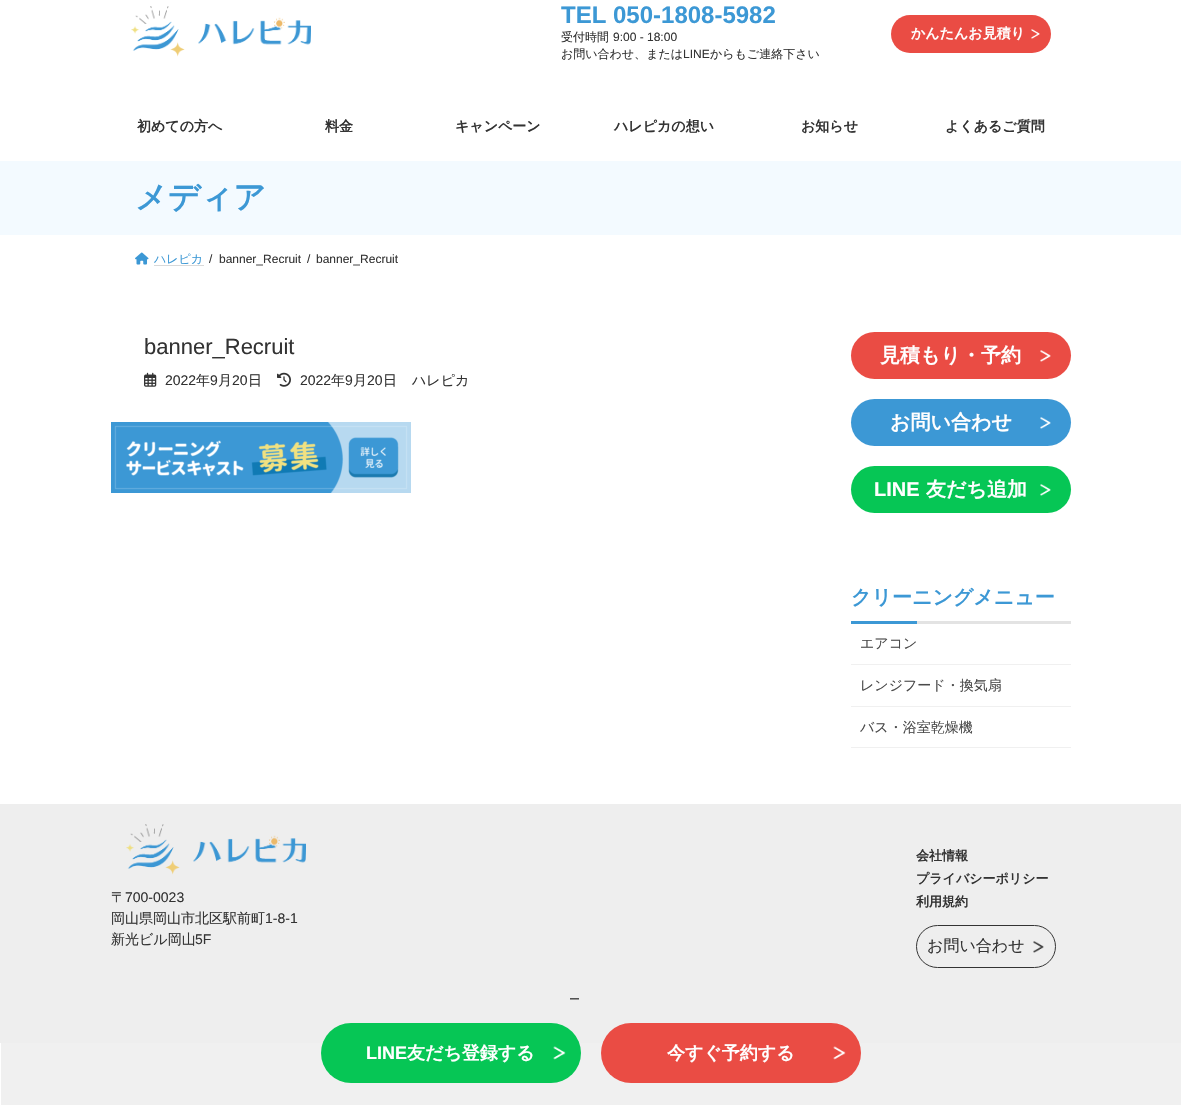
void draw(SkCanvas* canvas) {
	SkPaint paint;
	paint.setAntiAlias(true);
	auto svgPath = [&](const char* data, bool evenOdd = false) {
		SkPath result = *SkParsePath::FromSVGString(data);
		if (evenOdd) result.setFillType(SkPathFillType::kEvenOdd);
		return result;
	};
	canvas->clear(0xffffffff);
	canvas->drawImageRect(SkImages::DeferredFromEncodedData(SkData::MakeFromFileName("img1.png")), SkRect::MakeXYWH(131, 6, 180, 51), SkSamplingOptions());
	SkFont f1(fontMgr->matchFamilyStyle("Liberation Sans", SkFontStyle::Bold()), 24);
	f1.setSubpixel(true);
	paint.setColor(0xff3c98d5);
	canvas->drawString("TEL 050-1808-5982", 561, 23, f1, paint);
	SkFont f2(fontMgr->matchFamilyStyle("WenQuanYi Zen Hei", SkFontStyle(500, SkFontStyle::kNormal_Width, SkFontStyle::kUpright_Slant)), 12);
	f2.setSubpixel(true);
	paint.setColor(0xff333333);
	canvas->drawString("受付時間", 561, 41, f2, paint);
	SkFont f3(fontMgr->matchFamilyStyle("Liberation Sans", SkFontStyle::Normal()), 12);
	f3.setSubpixel(true);
	canvas->drawString("9:00 - 18:00", 613, 41, f3, paint);
	canvas->drawString("お問い合わせ、または", 561, 58, f2, paint);
	canvas->drawString("LINE", 683, 58, f3, paint);
	canvas->drawString("からもご連絡下さい", 710, 58, f2, paint);
	paint.setColor(0xffea4c44);
	canvas->drawRoundRect(SkRect::MakeXYWH(891, 15, 160, 38), 19, 19, paint);
	SkFont f4(fontMgr->matchFamilyStyle("WenQuanYi Zen Hei", SkFontStyle::Bold()), 14);
	f4.setSubpixel(true);
	paint.setColor(0xffffffff);
	canvas->drawString("かんたんお見積り", 911, 38, f4, paint);
	canvas->drawImageRect(SkImages::DeferredFromEncodedData(SkData::MakeFromFileName("img2.png")), SkRect::MakeXYWH(1031, 29, 9, 10), SkSamplingOptions());
	paint.setColor(0xff333333);
	canvas->drawString("初めての方へ", 137, 131, f4, paint);
	canvas->drawString("料金", 325, 131, f4, paint);
	canvas->drawString("キャンペーン", 455, 131, f4, paint);
	canvas->drawString("ハレピカの想い", 614, 131, f4, paint);
	canvas->drawString("お知らせ", 801, 131, f4, paint);
	canvas->drawString("よくあるご質問", 945, 131, f4, paint);
	paint.setColor(0xfff3faff);
	canvas->drawRect(SkRect::MakeXYWH(0, 161, 1181, 74), paint);
	SkFont f5(fontMgr->matchFamilyStyle("WenQuanYi Zen Hei", SkFontStyle::Bold()), 32);
	f5.setSubpixel(true);
	paint.setColor(0xff3c98d5);
	canvas->drawString("メディア", 135, 208, f5, paint);
	canvas->drawImageRect(SkImages::DeferredFromEncodedData(SkData::MakeFromFileName("img3.png")), SkRect::MakeXYWH(135, 252, 14, 13), SkSamplingOptions());
	canvas->drawString("ハレピカ", 154, 263, f2, paint);
	paint.setStroke(true);
	paint.setStrokeWidth(1);
	paint.setColor(0xffb3b3b3);
	paint.setPathEffect(SkDashPathEffect::Make({{1, 1}}, 0));
	canvas->drawPath(svgPath("M154.5 265.5H203.5"), paint);
	paint.setPathEffect(nullptr);
	paint.setStroke(false);
	paint.setColor(0xff333333);
	canvas->drawString("/", 209, 263, f3, paint);
	canvas->drawString("banner_Recruit", 219, 263, f3, paint);
	canvas->drawString("/", 307, 263, f3, paint);
	canvas->drawString("banner_Recruit", 316, 263, f3, paint);
	SkFont f6(fontMgr->matchFamilyStyle("Liberation Sans", SkFontStyle::Normal()), 22);
	f6.setSubpixel(true);
	canvas->drawString("banner_Recruit", 144, 354, f6, paint);
	canvas->drawImageRect(SkImages::DeferredFromEncodedData(SkData::MakeFromFileName("img4.png")), SkRect::MakeXYWH(144, 372, 13, 15), SkSamplingOptions());
	SkFont f7(fontMgr->matchFamilyStyle("Liberation Sans", SkFontStyle::Normal()), 14);
	f7.setSubpixel(true);
	canvas->drawString("2022", 165, 385, f7, paint);
	SkFont f8(fontMgr->matchFamilyStyle("WenQuanYi Zen Hei", SkFontStyle(500, SkFontStyle::kNormal_Width, SkFontStyle::kUpright_Slant)), 14);
	f8.setSubpixel(true);
	canvas->drawString("年", 196, 385, f8, paint);
	canvas->drawString("9", 210, 385, f7, paint);
	canvas->drawString("月", 218, 385, f8, paint);
	canvas->drawString("20", 232, 385, f7, paint);
	canvas->drawString("日", 248, 385, f8, paint);
	canvas->drawImageRect(SkImages::DeferredFromEncodedData(SkData::MakeFromFileName("img5.png")), SkRect::MakeXYWH(277, 372, 14, 15), SkSamplingOptions());
	canvas->drawString("2022", 300, 385, f7, paint);
	canvas->drawString("年", 331, 385, f8, paint);
	canvas->drawString("9", 345, 385, f7, paint);
	canvas->drawString("月", 353, 385, f8, paint);
	canvas->drawString("20", 367, 385, f7, paint);
	canvas->drawString("日", 383, 385, f8, paint);
	canvas->drawString("ハレピカ", 412, 385, f8, paint);
	canvas->drawImageRect(SkImages::DeferredFromEncodedData(SkData::MakeFromFileName("img6.png")), SkRect::MakeXYWH(111, 422, 300, 71), SkSamplingOptions());
	paint.setColor(0xffea4c44);
	canvas->drawRoundRect(SkRect::MakeXYWH(851, 332, 220, 47), 23.5, 23.5, paint);
	SkFont f9(fontMgr->matchFamilyStyle("WenQuanYi Zen Hei", SkFontStyle::Bold()), 20);
	f9.setSubpixel(true);
	paint.setColor(0xffffffff);
	canvas->drawString("見積もり・予約", 880, 362, f9, paint);
	canvas->drawImageRect(SkImages::DeferredFromEncodedData(SkData::MakeFromFileName("img7.png")), SkRect::MakeXYWH(1040, 350, 11, 12), SkSamplingOptions());
	paint.setColor(0xff3c98d5);
	canvas->drawRoundRect(SkRect::MakeXYWH(851, 399, 220, 47), 23.5, 23.5, paint);
	paint.setColor(0xffffffff);
	canvas->drawString("お問い合わせ", 890, 429, f9, paint);
	canvas->drawImageRect(SkImages::DeferredFromEncodedData(SkData::MakeFromFileName("img8.png")), SkRect::MakeXYWH(1040, 417, 11, 12), SkSamplingOptions());
	paint.setColor(0xff06c655);
	canvas->drawRoundRect(SkRect::MakeXYWH(851, 466, 220, 47), 23.5, 23.5, paint);
	SkFont f10(fontMgr->matchFamilyStyle("Liberation Sans", SkFontStyle::Bold()), 20);
	f10.setSubpixel(true);
	paint.setColor(0xffffffff);
	canvas->drawString("LINE", 874, 496, f10, paint);
	canvas->drawString("友だち追加", 926, 496, f9, paint);
	canvas->drawImageRect(SkImages::DeferredFromEncodedData(SkData::MakeFromFileName("img9.png")), SkRect::MakeXYWH(1040, 484, 11, 12), SkSamplingOptions());
	paint.setColor(0xffe3e3e3);
	canvas->drawRect(SkRect::MakeXYWH(917, 621, 154, 3), paint);
	paint.setColor(0xff3c98d5);
	canvas->drawString("クリーニングメニュー", 851, 604, f9, paint);
	canvas->drawRect(SkRect::MakeXYWH(851, 621, 66, 3), paint);
	paint.setColor(0xfff0f0f0);
	canvas->drawRect(SkRect::MakeXYWH(851, 664, 220, 1), paint);
	paint.setColor(0xff4a4a4a);
	canvas->drawString("エアコン", 860, 648, f8, paint);
	paint.setColor(0xfff0f0f0);
	canvas->drawRect(SkRect::MakeXYWH(851, 706, 220, 1), paint);
	paint.setColor(0xff4a4a4a);
	canvas->drawString("レンジフード・換気扇", 860, 690, f8, paint);
	paint.setColor(0xfff0f0f0);
	canvas->drawRect(SkRect::MakeXYWH(851, 747, 220, 1), paint);
	paint.setColor(0xff4a4a4a);
	canvas->drawString("バス・浴室乾燥機", 860, 732, f8, paint);
	paint.setColor(0xffeeeeee);
	canvas->drawRect(SkRect::MakeXYWH(0, 804, 1181, 239), paint);
	canvas->drawImageRect(SkImages::DeferredFromEncodedData(SkData::MakeFromFileName("img10.png")), SkRect::MakeXYWH(126, 824, 180, 51), SkSamplingOptions());
	paint.setColor(0xff333333);
	canvas->drawString("〒", 111, 902, f8, paint);
	canvas->drawString("700-0023", 125, 902, f7, paint);
	canvas->drawString("岡山県岡山市北区駅前町", 111, 923, f8, paint);
	canvas->drawString("1-8-1", 265, 923, f7, paint);
	canvas->drawString("新光ビル岡山", 111, 944, f8, paint);
	canvas->drawString("5F", 195, 944, f7, paint);
	SkFont f11(fontMgr->matchFamilyStyle("WenQuanYi Zen Hei", SkFontStyle::Bold()), 13);
	f11.setSubpixel(true);
	canvas->drawString("会社情報", 916, 860, f11, paint);
	canvas->drawString("プライバシーポリシー", 916, 883, f11, paint);
	canvas->drawString("利用規約", 916, 906, f11, paint);
	paint.setStroke(true);
	canvas->drawRoundRect(SkRect::MakeXYWH(916.5, 925.5, 139, 42), 21, 21, paint);
	SkFont f12(fontMgr->matchFamilyStyle("WenQuanYi Zen Hei", SkFontStyle(500, SkFontStyle::kNormal_Width, SkFontStyle::kUpright_Slant)), 16);
	f12.setSubpixel(true);
	paint.setStroke(false);
	canvas->drawString("お問い合わせ", 927, 951, f12, paint);
	canvas->drawImageRect(SkImages::DeferredFromEncodedData(SkData::MakeFromFileName("img11.png")), SkRect::MakeXYWH(1033, 941, 11, 12), SkSamplingOptions());
	SkFont f13(fontMgr->matchFamilyStyle("WenQuanYi Zen Hei", SkFontStyle(500, SkFontStyle::kNormal_Width, SkFontStyle::kUpright_Slant)), 11);
	f13.setSubpixel(true);
	canvas->drawString("ー", 569, 1003, f13, paint);
	paint.setColor(0xfff0f0f0);
	canvas->drawRect(SkRect::MakeXYWH(1, 1043, 1180, 62), paint);
	paint.setColor(0xff06c655);
	canvas->drawRoundRect(SkRect::MakeXYWH(321, 1023, 260, 60), 30, 30, paint);
	SkFont f14(fontMgr->matchFamilyStyle("Liberation Sans", SkFontStyle::Bold()), 18);
	f14.setSubpixel(true);
	paint.setColor(0xffffffff);
	canvas->drawString("LINE", 366, 1059, f14, paint);
	SkFont f15(fontMgr->matchFamilyStyle("WenQuanYi Zen Hei", SkFontStyle::Bold()), 18);
	f15.setSubpixel(true);
	canvas->drawString("友だち登録する", 407, 1059, f15, paint);
	canvas->drawImageRect(SkImages::DeferredFromEncodedData(SkData::MakeFromFileName("img12.png")), SkRect::MakeXYWH(553, 1046, 13, 14), SkSamplingOptions());
	paint.setColor(0xffea4c44);
	canvas->drawRoundRect(SkRect::MakeXYWH(601, 1023, 260, 60), 30, 30, paint);
	paint.setColor(0xffffffff);
	canvas->drawString("今すぐ予約する", 667, 1059, f15, paint);
	canvas->drawImageRect(SkImages::DeferredFromEncodedData(SkData::MakeFromFileName("img13.png")), SkRect::MakeXYWH(833, 1046, 13, 14), SkSamplingOptions());
}
